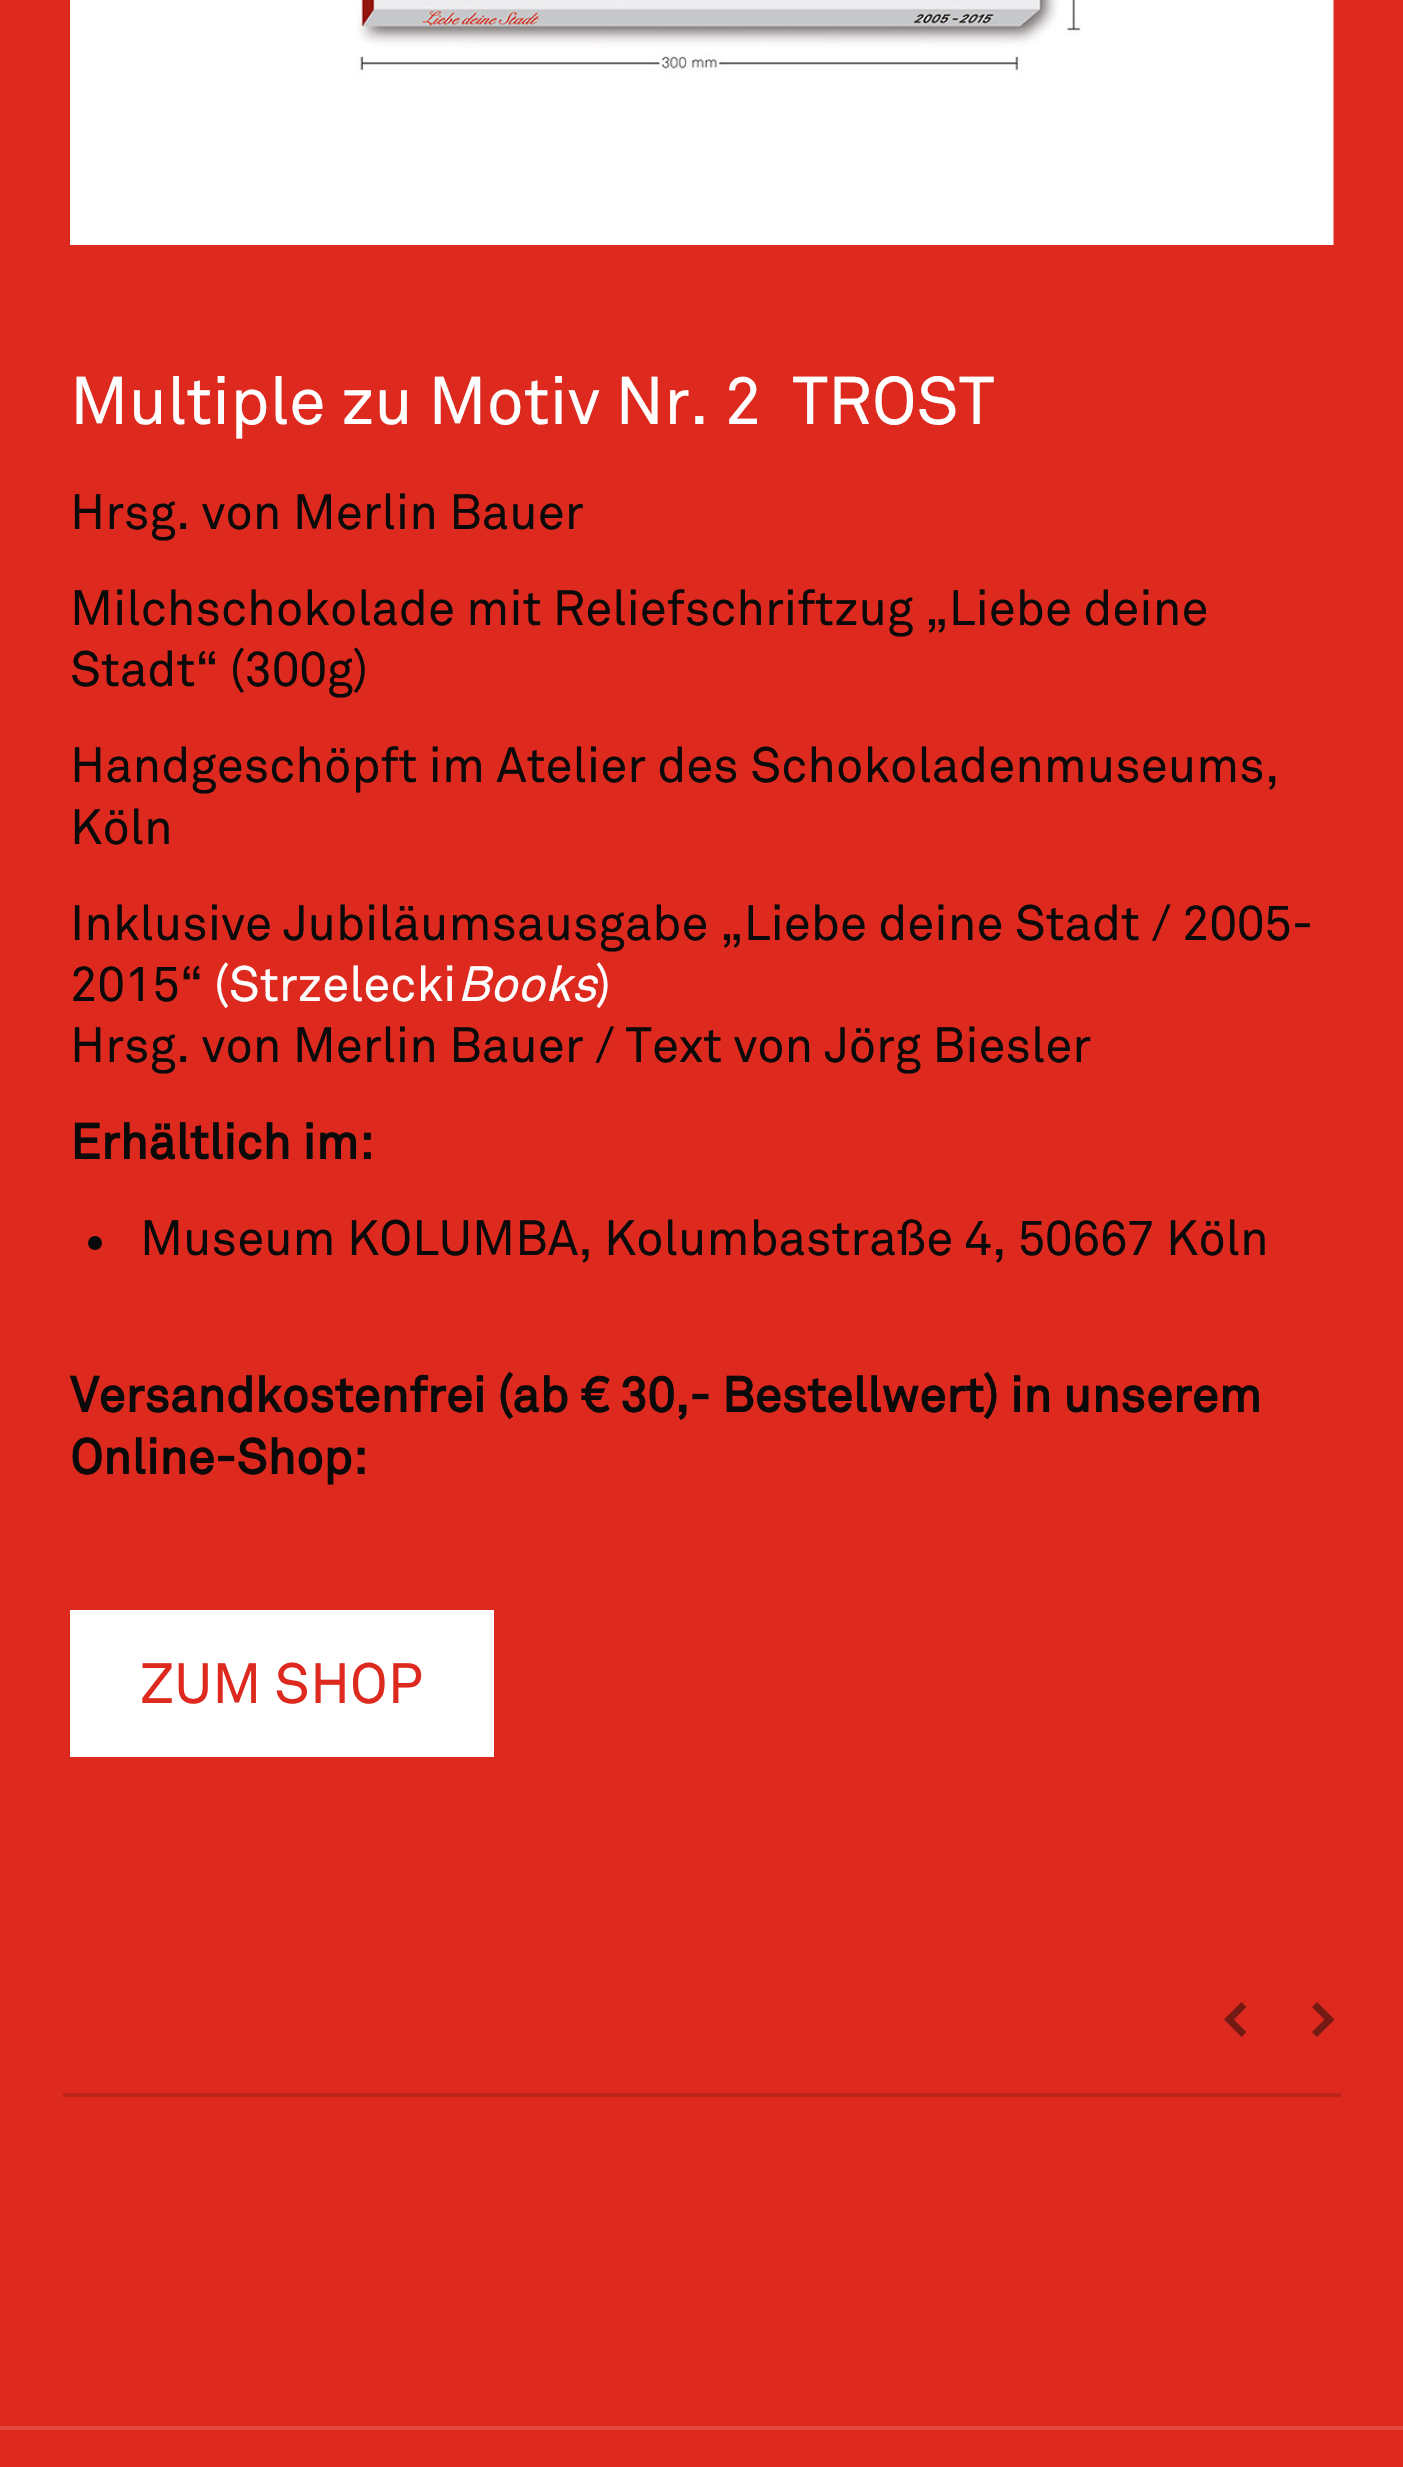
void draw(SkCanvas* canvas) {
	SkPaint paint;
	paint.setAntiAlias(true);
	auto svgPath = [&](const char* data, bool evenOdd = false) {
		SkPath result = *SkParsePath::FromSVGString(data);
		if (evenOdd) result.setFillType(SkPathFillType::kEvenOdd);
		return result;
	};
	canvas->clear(0xffdd291e);
	canvas->drawImageRect(SkImages::DeferredFromEncodedData(SkData::MakeFromFileName("img1.png")), SkRect::MakeXYWH(70, 0, 1264, 245), SkSamplingOptions());
	SkFont f1(fontMgr->matchFamilyStyle("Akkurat", SkFontStyle::Normal()), 66.5);
	f1.setSubpixel(true);
	paint.setColor(0xffffffff);
	canvas->drawString("Multiple zu Motiv Nr. 2  TROST", 70, 424, f1, paint);
	SkFont f2(fontMgr->matchFamilyStyle("Akkurat", SkFontStyle::Normal()), 49);
	f2.setSubpixel(true);
	paint.setColor(0xff0a0a0a);
	canvas->drawString("Hrsg. von Merlin Bauer", 70, 529, f2, paint);
	canvas->drawString("Milchschokolade mit Reliefschriftzug „Liebe deine", 70, 625, f2, paint);
	canvas->drawString("Stadt“ (300g)", 70, 686, f2, paint);
	canvas->drawString("Handgeschöpft im Atelier des Schokoladenmuseums,", 70, 782, f2, paint);
	canvas->drawString("Köln", 70, 844, f2, paint);
	canvas->drawString("Inklusive Jubiläumsausgabe „Liebe deine Stadt / 2005-", 70, 940, f2, paint);
	canvas->drawString("2015“", 70, 1001, f2, paint);
	paint.setColor(0xffffffff);
	canvas->drawString("(Strzelecki", 214, 1001, f2, paint);
	SkFont f3(fontMgr->matchFamilyStyle("Akkurat", SkFontStyle::Italic()), 49);
	f3.setSubpixel(true);
	canvas->drawString("Books", 457, 1001, f3, paint);
	canvas->drawString(")", 596, 1001, f2, paint);
	paint.setColor(0xff0a0a0a);
	canvas->drawString("Hrsg. von Merlin Bauer / Text von Jörg Biesler", 70, 1062, f2, paint);
	SkFont f4(fontMgr->matchFamilyStyle("Akkurat", SkFontStyle::Bold()), 49);
	f4.setSubpixel(true);
	canvas->drawString("Erhältlich im:", 70, 1159, f4, paint);
	canvas->drawCircle(95, 1243, 7, paint);
	canvas->drawString("Museum KOLUMBA, Kolumbastraße 4, 50667 Köln", 140, 1255, f2, paint);
	canvas->drawString("Versandkostenfrei (ab € 30,- Bestellwert) in unserem", 70, 1412, f4, paint);
	canvas->drawString("Online-Shop:", 70, 1474, f4, paint);
	paint.setColor(0xffffffff);
	canvas->drawRect(SkRect::MakeXYWH(70, 1610, 424, 147), paint);
	SkFont f5(fontMgr->matchFamilyStyle("Akkurat", SkFontStyle::Normal()), 56);
	f5.setSubpixel(true);
	paint.setColor(0xffdd291e);
	canvas->drawString("ZUM SHOP", 140, 1703, f5, paint);
	paint.setColor(0xffbd241b);
	canvas->drawRect(SkRect::MakeXYWH(63, 2093, 1278, 4), paint);
	paint.setColor(0xff741a14);
	canvas->drawPath(svgPath("M1246.5 2032L1234 2019.5L1246.5 2007L1241.5 2002L1224 2019.5L1241.5 2037Z"), paint);
	canvas->drawPath(svgPath("M1334.5 2019.5L1317 2002L1312 2007L1324.5 2019.5L1312 2032L1317 2037L1329.5 2024.5Z"), paint);
	paint.setColor(0xffe24940);
	canvas->drawRect(SkRect::MakeXYWH(0, 2426, 1403, 4), paint);
}
